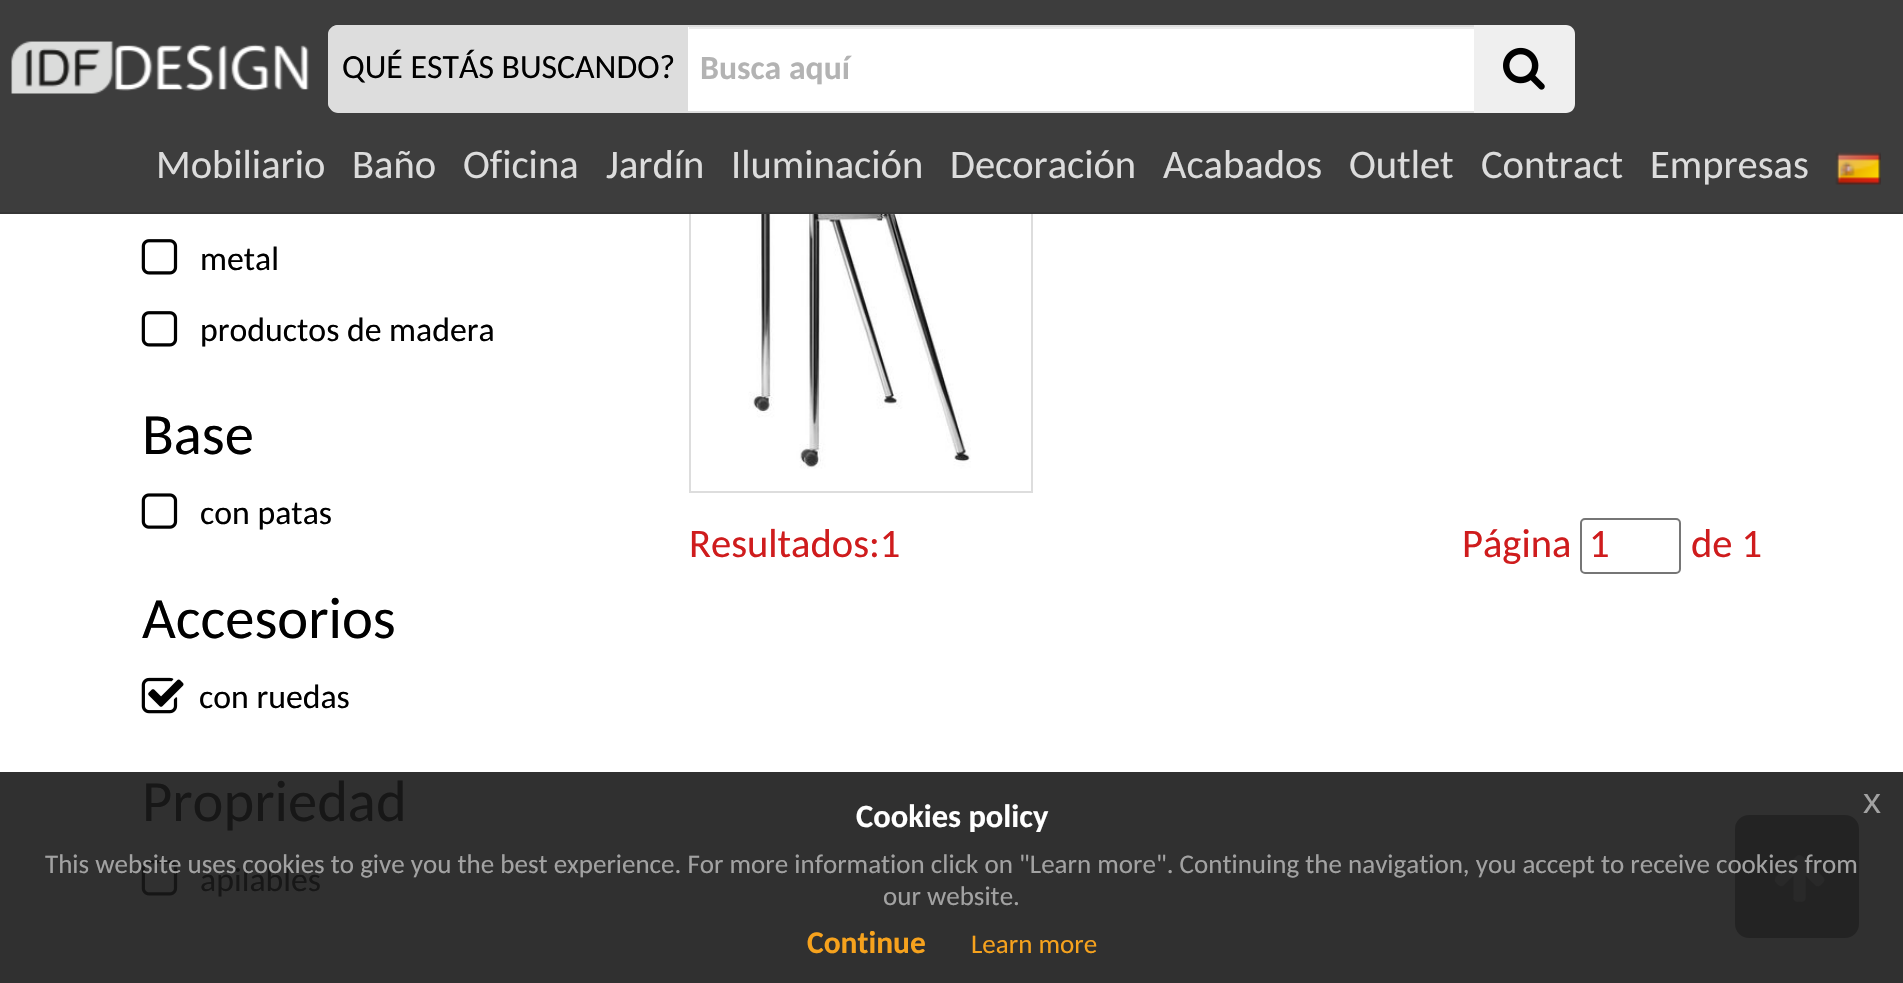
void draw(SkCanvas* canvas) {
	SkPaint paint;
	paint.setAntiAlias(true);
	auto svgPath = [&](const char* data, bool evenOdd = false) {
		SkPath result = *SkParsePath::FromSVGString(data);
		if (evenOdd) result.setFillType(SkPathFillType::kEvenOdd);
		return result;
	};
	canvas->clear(0xffffffff);
	paint.setColor(0xff303030);
	canvas->drawRect(SkRect::MakeXYWH(0, 772, 1903, 211), paint);
	paint.setStroke(true);
	paint.setStrokeWidth(2);
	paint.setColor(0xffdddddd);
	canvas->drawRect(SkRect::MakeXYWH(690, 1, 342, 491), paint);
	paint.setStroke(false);
	paint.setColor(0xff3d3d3d);
	canvas->drawRect(SkRect::MakeXYWH(0, 0, 1903, 212), paint);
	paint.setColor(0xff363636);
	canvas->drawRect(SkRect::MakeXYWH(0, 212, 1903, 2), paint);
	canvas->drawImageRect(SkImages::DeferredFromEncodedData(SkData::MakeFromFileName("img1.png")), SkRect::MakeXYWH(11, 41, 298, 53), SkSamplingOptions());
	paint.setColor(0xffdddddd);
	canvas->drawPath(svgPath("M338 25H686V113H338C333 113 329 109 329 104V34C329 29 333 25 338 25Z"), paint);
	canvas->drawPath(svgPath("M338 25H686V112H338C333 112 328 108 328 104V34C328 29 333 25 338 25ZM338 27H686V110H338C334 110 331 107 331 104V34C331 30 334 27 338 27Z", true), paint);
	SkFont f1(fontMgr->matchFamilyStyle("Carlito", SkFontStyle::Normal()), 33.75);
	f1.setSubpixel(true);
	paint.setColor(0xff000000);
	canvas->drawString("QUÉ ESTÁS BUSCANDO?", 342, 78, f1, paint);
	paint.setColor(0xffffffff);
	canvas->drawRect(SkRect::MakeXYWH(688, 27, 786, 84), paint);
	paint.setColor(0xffececec);
	canvas->drawRect(SkRect::MakeXYWH(689, 27, 785, 2), paint);
	paint.setStroke(true);
	paint.setColor(0xffdddddd);
	canvas->drawRect(SkRect::MakeXYWH(687, 26, 788, 86), paint);
	SkFont f2(fontMgr->matchFamilyStyle("Carlito", SkFontStyle::Bold()), 33.75);
	f2.setSubpixel(true);
	paint.setStroke(false);
	paint.setColor(0xffb3b3b3);
	canvas->drawString("Busca aquí", 700, 79, f2, paint);
	paint.setColor(0xffefefef);
	canvas->drawPath(svgPath("M1474 25H1566C1571 25 1575 29 1575 34V104C1575 109 1571 113 1566 113H1474Z"), paint);
	canvas->drawImageRect(SkImages::DeferredFromEncodedData(SkData::MakeFromFileName("img2.png")), SkRect::MakeXYWH(1503, 47, 42, 43), SkSamplingOptions());
	SkFont f3(fontMgr->matchFamilyStyle("Carlito", SkFontStyle::Normal()), 40.5);
	f3.setSubpixel(true);
	paint.setColor(0xffdcdcdc);
	canvas->drawString("Mobiliario", 156, 178, f3, paint);
	canvas->drawString("Baño", 352, 178, f3, paint);
	canvas->drawString("Oficina", 463, 178, f3, paint);
	canvas->drawString("Jardín", 606, 178, f3, paint);
	canvas->drawString("Iluminación", 731, 178, f3, paint);
	canvas->drawString("Decoración", 950, 178, f3, paint);
	canvas->drawString("Acabados", 1163, 178, f3, paint);
	canvas->drawString("Outlet", 1349, 178, f3, paint);
	canvas->drawString("Contract", 1481, 178, f3, paint);
	canvas->drawString("Empresas", 1650, 178, f3, paint);
	canvas->drawImageRect(SkImages::DeferredFromEncodedData(SkData::MakeFromFileName("img3.png")), SkRect::MakeXYWH(1835, 152, 46, 33), SkSamplingOptions());
	canvas->drawImageRect(SkImages::DeferredFromEncodedData(SkData::MakeFromFileName("img4.png")), SkRect::MakeXYWH(141, 239, 37, 36), SkSamplingOptions());
	paint.setColor(0xff000000);
	canvas->drawString("metal", 200, 270, f1, paint);
	canvas->drawImageRect(SkImages::DeferredFromEncodedData(SkData::MakeFromFileName("img4.png")), SkRect::MakeXYWH(141, 311, 37, 36), SkSamplingOptions());
	canvas->drawString("productos de madera", 200, 341, f1, paint);
	SkFont f4(fontMgr->matchFamilyStyle("Carlito", SkFontStyle::Normal()), 58.5);
	f4.setSubpixel(true);
	canvas->drawString("Base", 142, 454, f4, paint);
	canvas->drawImageRect(SkImages::DeferredFromEncodedData(SkData::MakeFromFileName("img5.png")), SkRect::MakeXYWH(141, 493, 37, 36), SkSamplingOptions());
	canvas->drawString("con patas", 200, 524, f1, paint);
	canvas->drawString("Accesorios", 142, 638, f4, paint);
	canvas->drawImageRect(SkImages::DeferredFromEncodedData(SkData::MakeFromFileName("img6.png")), SkRect::MakeXYWH(141, 677, 43, 37), SkSamplingOptions());
	canvas->drawString("con ruedas", 199, 708, f1, paint);
	paint.setColor(0xff171717);
	canvas->drawString("Propriedad", 142, 821, f4, paint);
	canvas->drawImageRect(SkImages::DeferredFromEncodedData(SkData::MakeFromFileName("img7.png")), SkRect::MakeXYWH(141, 860, 37, 36), SkSamplingOptions());
	canvas->drawString("apilables", 200, 891, f1, paint);
	canvas->drawImageRect(SkImages::DeferredFromEncodedData(SkData::MakeFromFileName("img8.png")), SkRect::MakeXYWH(748, 214, 223, 255), SkSamplingOptions());
	paint.setColor(0xffcf1c1d);
	canvas->drawString("Resultados:1", 689, 557, f3, paint);
	canvas->drawString("Página", 1462, 557, f3, paint);
	paint.setStroke(true);
	paint.setColor(0xff767676);
	canvas->drawRoundRect(SkRect::MakeXYWH(1581, 519, 99, 54), 4, 4, paint);
	paint.setStroke(false);
	paint.setColor(0xffcf1c1d);
	canvas->drawString("1", 1589, 557, f3, paint);
	canvas->drawString("de 1", 1691, 557, f3, paint);
	SkFont f5(fontMgr->matchFamilyStyle("Carlito", SkFontStyle::Bold()), 32.5);
	f5.setSubpixel(true);
	paint.setColor(0xffffffff);
	canvas->drawString("Cookies policy", 856, 827, f5, paint);
	SkFont f6(fontMgr->matchFamilyStyle("Liberation Sans", SkFontStyle::Normal()), 36);
	f6.setSubpixel(true);
	paint.setColor(0xffa2a2a2);
	canvas->drawString("x", 1863, 813, f6, paint);
	paint.setColor(0xff232323);
	canvas->drawRoundRect(SkRect::MakeXYWH(1736, 816, 122, 121), 13, 13, paint);
	paint.setStroke(true);
	canvas->drawRoundRect(SkRect::MakeXYWH(1736, 816, 122, 121), 13, 13, paint);
	canvas->drawImageRect(SkImages::DeferredFromEncodedData(SkData::MakeFromFileName("img9.png")), SkRect::MakeXYWH(1774, 855, 51, 47), SkSamplingOptions());
	SkFont f7(fontMgr->matchFamilyStyle("Carlito", SkFontStyle::Normal()), 27);
	f7.setSubpixel(true);
	paint.setStroke(false);
	paint.setColor(0xffa2a2a2);
	canvas->drawString("This website uses cookies to give you the best experience. For more information click on \"Learn more\". Continuing the navigation, you accept to receive cookies from", 45, 873, f7, paint);
	canvas->drawString("our website.", 883, 905, f7, paint);
	SkFont f8(fontMgr->matchFamilyStyle("Carlito", SkFontStyle::Bold()), 31.5);
	f8.setSubpixel(true);
	paint.setColor(0xfff6a21d);
	canvas->drawString("Continue", 807, 953, f8, paint);
	canvas->drawString("Learn more", 971, 953, f7, paint);
}
